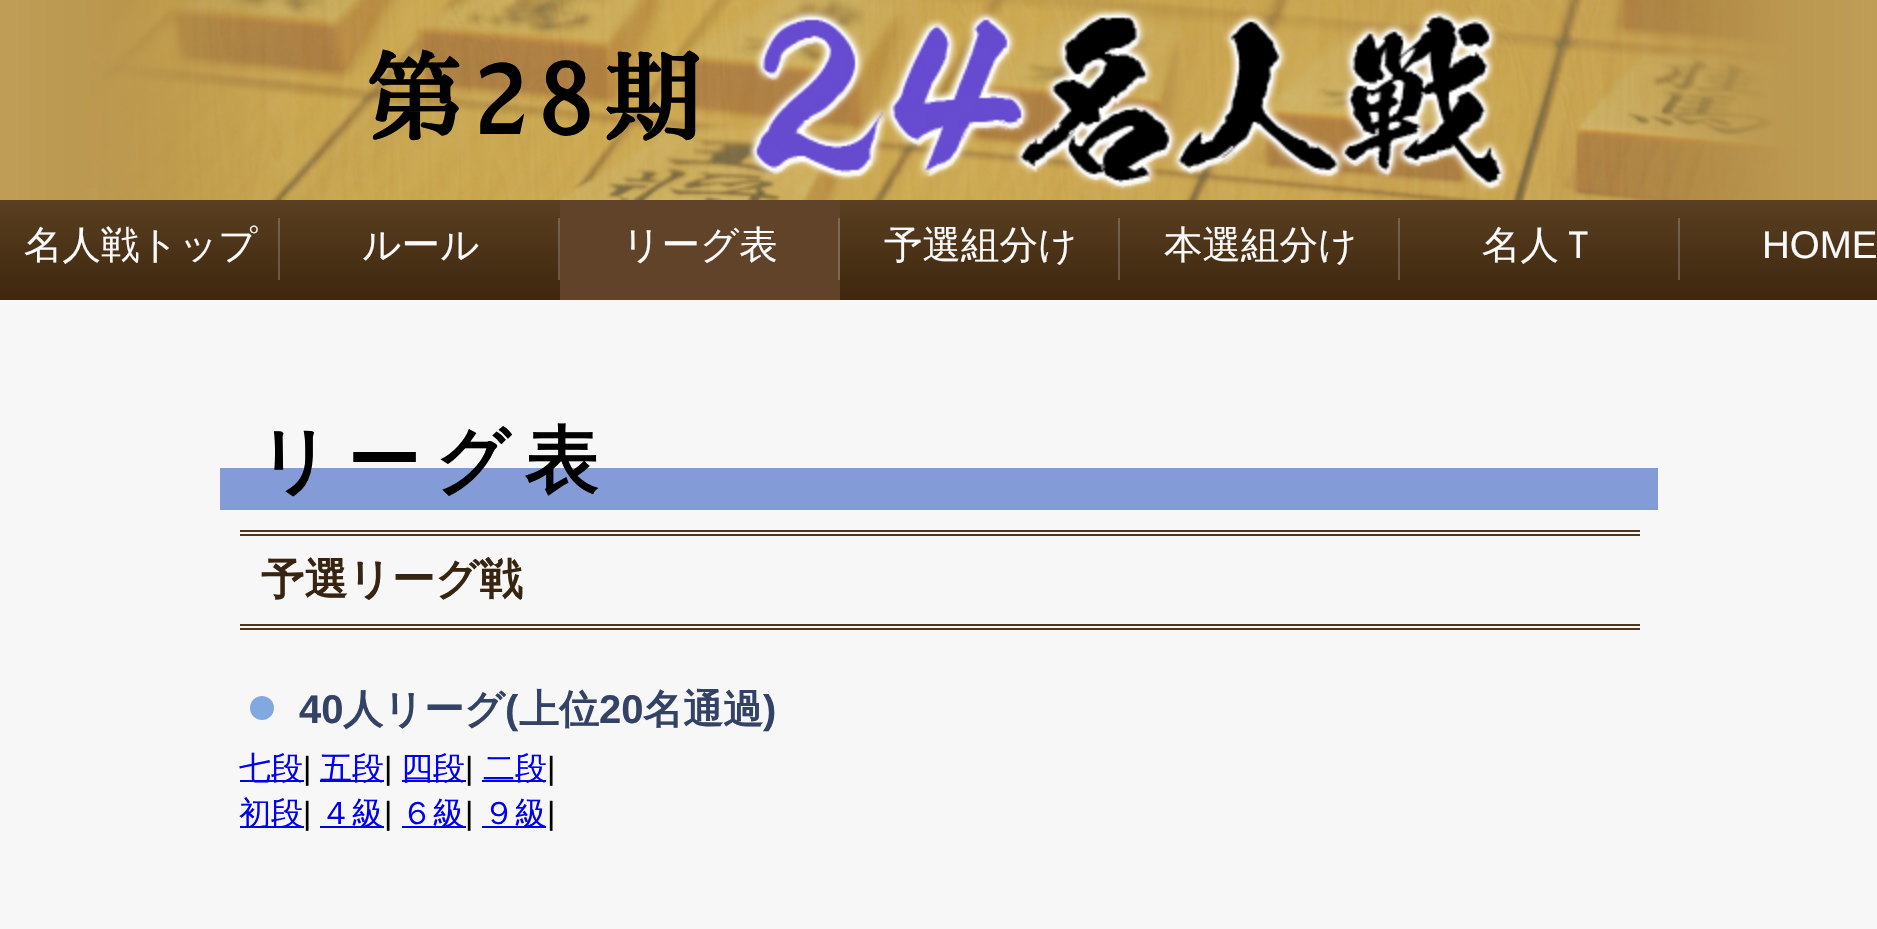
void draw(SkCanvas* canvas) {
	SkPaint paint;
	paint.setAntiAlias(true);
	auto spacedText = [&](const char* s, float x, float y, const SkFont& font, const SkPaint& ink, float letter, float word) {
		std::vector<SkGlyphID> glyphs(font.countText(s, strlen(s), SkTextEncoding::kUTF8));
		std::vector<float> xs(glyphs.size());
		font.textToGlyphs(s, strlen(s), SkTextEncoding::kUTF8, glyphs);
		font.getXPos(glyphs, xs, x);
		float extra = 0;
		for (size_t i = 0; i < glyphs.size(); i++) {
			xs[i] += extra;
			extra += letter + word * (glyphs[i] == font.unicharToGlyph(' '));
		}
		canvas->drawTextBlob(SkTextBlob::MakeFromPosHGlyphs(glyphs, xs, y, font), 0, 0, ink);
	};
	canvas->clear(0xffffffff);
	canvas->drawImageRect(SkImages::DeferredFromEncodedData(SkData::MakeFromFileName("img1.png")), SkRect::MakeXYWH(0, 0, 1877, 200), SkSamplingOptions());
	SkFont f1(fontMgr->matchFamilyStyle("Sawarabi Mincho", SkFontStyle::Bold()), 96);
	f1.setSubpixel(true);
	paint.setColor(0xff000000);
	spacedText("第28期", 366, 134, f1, paint, 11.5, 0);
	{
		const SkColor colors[] = {0xff5a3f21, 0xff3e270e};
		const float stops[] = {0.01, 1};
		const SkPoint ends[] = {{939, 200}, {939, 300}};
		paint.setShader(SkGradientShader::MakeLinear(ends, colors, stops, 2, SkTileMode::kClamp));
		paint.setAlpha(255);
	}
	canvas->drawRect(SkRect::MakeXYWH(0, 200, 1877, 100), paint);
	{
		const SkColor colors[] = {0xff7b654d, 0xff65523e};
		const float stops[] = {0.01, 1};
		const SkPoint ends[] = {{939, 200}, {939, 300}};
		paint.setShader(SkGradientShader::MakeLinear(ends, colors, stops, 2, SkTileMode::kClamp));
		paint.setAlpha(255);
	}
	canvas->drawRect(SkRect::MakeXYWH(1678, 218, 2, 62), paint);
	canvas->drawRect(SkRect::MakeXYWH(1398, 218, 2, 62), paint);
	canvas->drawRect(SkRect::MakeXYWH(1118, 218, 2, 62), paint);
	canvas->drawRect(SkRect::MakeXYWH(558, 218, 2, 62), paint);
	canvas->drawRect(SkRect::MakeXYWH(278, 218, 2, 62), paint);
	SkFont f2(fontMgr->matchFamilyStyle("WenQuanYi Zen Hei", SkFontStyle(500, SkFontStyle::kNormal_Width, SkFontStyle::kUpright_Slant)), 38.5);
	f2.setSubpixel(true);
	paint.setShader(nullptr);
	paint.setColor(0xfffafafa);
	canvas->drawString("名人戦トップ", 24, 258, f2, paint);
	canvas->drawString("ルール", 362, 258, f2, paint);
	paint.setColor(0xff604328);
	canvas->drawRect(SkRect::MakeXYWH(560, 200, 280, 100), paint);
	paint.setColor(0xfffafafa);
	canvas->drawString("リーグ表", 622, 258, f2, paint);
	paint.setColor(0xff806953);
	canvas->drawRect(SkRect::MakeXYWH(838, 218, 2, 62), paint);
	paint.setColor(0xfffafafa);
	canvas->drawString("予選組分け", 884, 258, f2, paint);
	canvas->drawString("本選組分け", 1164, 258, f2, paint);
	canvas->drawString("名人Ｔ", 1482, 258, f2, paint);
	SkFont f3(fontMgr->matchFamilyStyle("Liberation Sans", SkFontStyle::Normal()), 38.5);
	f3.setSubpixel(true);
	canvas->drawString("HOME", 1762, 258, f3, paint);
	paint.setColor(0xfff7f7f7);
	canvas->drawRect(SkRect::MakeXYWH(0, 300, 1877, 629), paint);
	paint.setColor(0xff839cd7);
	canvas->drawRect(SkRect::MakeXYWH(220, 468, 1438, 42), paint);
	SkFont f4(fontMgr->matchFamilyStyle("WenQuanYi Zen Hei", SkFontStyle::Bold()), 73.5);
	f4.setSubpixel(true);
	paint.setColor(0xff000000);
	spacedText("リーグ表", 257, 486, f4, paint, 14.5, 0);
	paint.setColor(0xff4f3519);
	canvas->drawRect(SkRect::MakeXYWH(240, 530, 1400, 2), paint);
	canvas->drawRect(SkRect::MakeXYWH(240, 534, 1400, 2), paint);
	canvas->drawRect(SkRect::MakeXYWH(240, 624, 1400, 2), paint);
	canvas->drawRect(SkRect::MakeXYWH(240, 628, 1400, 2), paint);
	SkFont f5(fontMgr->matchFamilyStyle("WenQuanYi Zen Hei", SkFontStyle::Bold()), 43.25);
	f5.setSubpixel(true);
	paint.setColor(0xff372511);
	canvas->drawString("予選リーグ戦", 261, 594, f5, paint);
	paint.setColor(0xff82a8e1);
	canvas->drawCircle(262, 708, 12, paint);
	SkFont f6(fontMgr->matchFamilyStyle("Liberation Sans", SkFontStyle::Bold()), 40);
	f6.setSubpixel(true);
	paint.setColor(0xff344365);
	canvas->drawString("40", 299, 723, f6, paint);
	SkFont f7(fontMgr->matchFamilyStyle("WenQuanYi Zen Hei", SkFontStyle::Bold()), 40);
	f7.setSubpixel(true);
	canvas->drawString("人リーグ", 343, 723, f7, paint);
	canvas->drawString("(", 505, 723, f6, paint);
	canvas->drawString("上位", 519, 723, f7, paint);
	canvas->drawString("20", 599, 723, f6, paint);
	canvas->drawString("名通過", 643, 723, f7, paint);
	canvas->drawString(")", 763, 723, f6, paint);
	paint.setColor(0xff0000ee);
	canvas->drawRect(SkRect::MakeXYWH(240, 780, 64, 2), paint);
	SkFont f8(fontMgr->matchFamilyStyle("WenQuanYi Zen Hei", SkFontStyle(500, SkFontStyle::kNormal_Width, SkFontStyle::kUpright_Slant)), 32);
	f8.setSubpixel(true);
	canvas->drawString("七段", 239, 779, f8, paint);
	SkFont f9(fontMgr->matchFamilyStyle("Liberation Sans", SkFontStyle::Normal()), 32);
	f9.setSubpixel(true);
	paint.setColor(0xff000000);
	canvas->drawString("|", 303, 779, f9, paint);
	paint.setColor(0xff0000ee);
	canvas->drawRect(SkRect::MakeXYWH(320, 780, 64, 2), paint);
	canvas->drawString("五段", 320, 779, f8, paint);
	paint.setColor(0xff000000);
	canvas->drawString("|", 384, 779, f9, paint);
	paint.setColor(0xff0000ee);
	canvas->drawRect(SkRect::MakeXYWH(402, 780, 64, 2), paint);
	canvas->drawString("四段", 401, 779, f8, paint);
	paint.setColor(0xff000000);
	canvas->drawString("|", 465, 779, f9, paint);
	paint.setColor(0xff0000ee);
	canvas->drawRect(SkRect::MakeXYWH(482, 780, 64, 2), paint);
	canvas->drawString("二段", 483, 779, f8, paint);
	paint.setColor(0xff000000);
	canvas->drawString("|", 547, 779, f9, paint);
	paint.setColor(0xff0000ee);
	canvas->drawRect(SkRect::MakeXYWH(240, 826, 64, 2), paint);
	canvas->drawString("初段", 239, 824, f8, paint);
	paint.setColor(0xff000000);
	canvas->drawString("|", 303, 824, f9, paint);
	paint.setColor(0xff0000ee);
	canvas->drawRect(SkRect::MakeXYWH(320, 826, 64, 2), paint);
	canvas->drawString("４級", 320, 824, f8, paint);
	paint.setColor(0xff000000);
	canvas->drawString("|", 384, 824, f9, paint);
	paint.setColor(0xff0000ee);
	canvas->drawRect(SkRect::MakeXYWH(402, 826, 64, 2), paint);
	canvas->drawString("６級", 401, 824, f8, paint);
	paint.setColor(0xff000000);
	canvas->drawString("|", 465, 824, f9, paint);
	paint.setColor(0xff0000ee);
	canvas->drawRect(SkRect::MakeXYWH(482, 826, 64, 2), paint);
	canvas->drawString("９級", 483, 824, f8, paint);
	paint.setColor(0xff000000);
	canvas->drawString("|", 547, 824, f9, paint);
}
